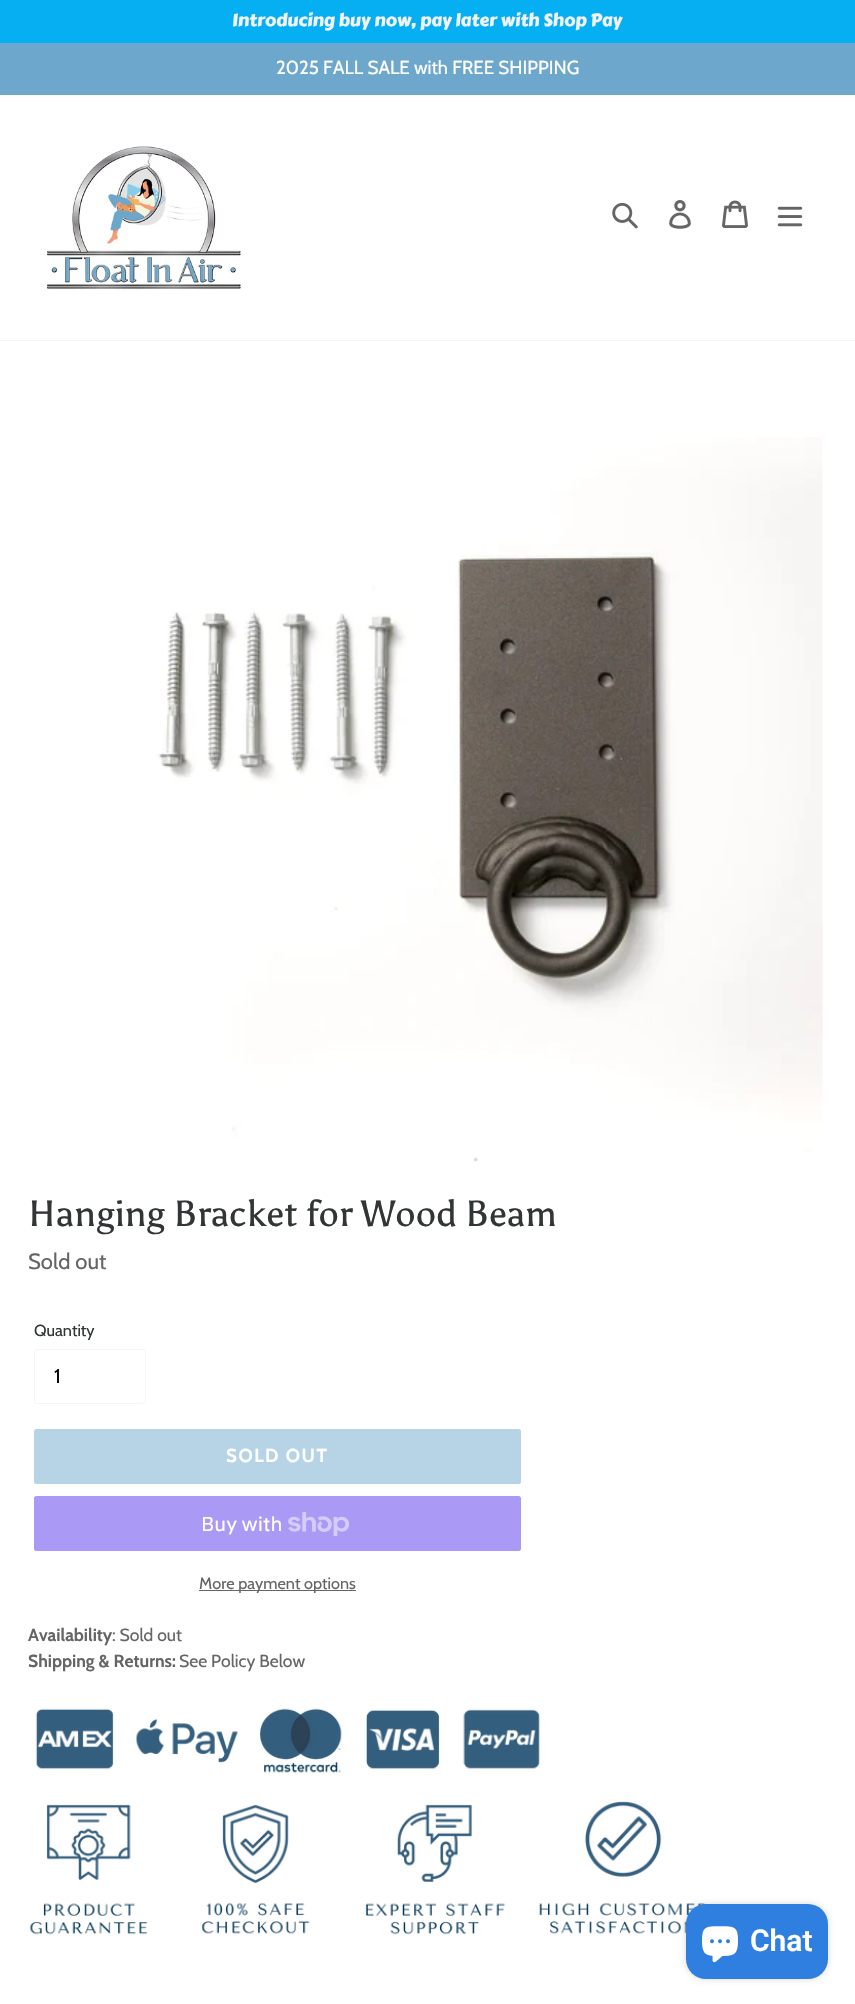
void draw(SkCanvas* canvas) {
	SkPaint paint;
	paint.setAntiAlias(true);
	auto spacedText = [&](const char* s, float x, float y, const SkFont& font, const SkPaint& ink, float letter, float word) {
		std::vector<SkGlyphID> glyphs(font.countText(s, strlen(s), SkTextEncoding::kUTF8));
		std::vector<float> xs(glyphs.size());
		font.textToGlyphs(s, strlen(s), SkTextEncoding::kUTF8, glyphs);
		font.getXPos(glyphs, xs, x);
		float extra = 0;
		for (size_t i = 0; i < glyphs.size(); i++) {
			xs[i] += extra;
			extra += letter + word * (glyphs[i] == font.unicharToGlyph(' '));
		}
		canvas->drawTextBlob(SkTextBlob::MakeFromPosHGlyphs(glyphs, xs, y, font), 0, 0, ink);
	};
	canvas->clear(0xffffffff);
	paint.setColor(0xff05aff2);
	canvas->drawRect(SkRect::MakeXYWH(0, 0, 855, 43), paint);
	SkFont f1(fontMgr->matchFamilyStyle("Carter One", SkFontStyle::Normal()), 17.5);
	f1.setSubpixel(true);
	paint.setColor(0xfff2f2f2);
	canvas->drawString("Introducing buy now, pay later with Shop Pay", 232, 26, f1, paint);
	paint.setColor(0xff6ea7cc);
	canvas->drawRect(SkRect::MakeXYWH(0, 43, 855, 52), paint);
	SkFont f2(fontMgr->matchFamilyStyle("Cabin", SkFontStyle::Normal()), 18.75);
	f2.setSubpixel(true);
	paint.setColor(0xffffffff);
	canvas->drawString("2025 FALL SALE with FREE SHIPPING", 276, 74, f2, paint);
	paint.setColor(0xfff3f6f8);
	canvas->drawRect(SkRect::MakeXYWH(0, 340, 855, 1), paint);
	canvas->drawImageRect(SkImages::DeferredFromEncodedData(SkData::MakeFromFileName("img1.png")), SkRect::MakeXYWH(47, 146, 195, 144), SkSamplingOptions());
	canvas->drawImageRect(SkImages::DeferredFromEncodedData(SkData::MakeFromFileName("img2.png")), SkRect::MakeXYWH(612, 202, 26, 27), SkSamplingOptions());
	canvas->drawImageRect(SkImages::DeferredFromEncodedData(SkData::MakeFromFileName("img3.png")), SkRect::MakeXYWH(669, 200, 22, 29), SkSamplingOptions());
	canvas->drawImageRect(SkImages::DeferredFromEncodedData(SkData::MakeFromFileName("img4.png")), SkRect::MakeXYWH(722, 200, 26, 28), SkSamplingOptions());
	canvas->drawImageRect(SkImages::DeferredFromEncodedData(SkData::MakeFromFileName("img5.png")), SkRect::MakeXYWH(777, 206, 26, 21), SkSamplingOptions());
	canvas->drawImageRect(SkImages::DeferredFromEncodedData(SkData::MakeFromFileName("img6.png")), SkRect::MakeXYWH(156, 437, 667, 725), SkSamplingOptions());
	SkFont f3(fontMgr->matchFamilyStyle("Asul", SkFontStyle::Normal()), 36.25);
	f3.setSubpixel(true);
	paint.setColor(0xff313536);
	canvas->drawString("Hanging Bracket for Wood Beam", 28, 1226, f3, paint);
	SkFont f4(fontMgr->matchFamilyStyle("Cabin", SkFontStyle::Normal()), 22);
	f4.setSubpixel(true);
	paint.setColor(0xff656565);
	canvas->drawString("Sold out", 28, 1269, f4, paint);
	SkFont f5(fontMgr->matchFamilyStyle("Cabin", SkFontStyle::Normal()), 16.25);
	f5.setSubpixel(true);
	paint.setColor(0xff313536);
	canvas->drawString("Quantity", 34, 1336, f5, paint);
	paint.setStroke(true);
	paint.setStrokeWidth(1);
	paint.setColor(0xfff3f6f8);
	canvas->drawRoundRect(SkRect::MakeXYWH(34.5, 1349.5, 111, 54), 2, 2, paint);
	SkFont f6(fontMgr->matchFamilyStyle("Cabin", SkFontStyle::Normal()), 20);
	f6.setSubpixel(true);
	paint.setStroke(false);
	paint.setColor(0xff000000);
	canvas->drawString("1", 54, 1383, f6, paint);
	paint.setColor(0xffb7d3e6);
	canvas->drawRoundRect(SkRect::MakeXYWH(34, 1429, 487, 55), 2.5, 2.5, paint);
	SkFont f7(fontMgr->matchFamilyStyle("Cabin", SkFontStyle::Bold()), 18.75);
	f7.setSubpixel(true);
	paint.setColor(0xffffffff);
	spacedText("SOLD OUT", 226, 1462, f7, paint, 1.5, 0);
	paint.setColor(0xffaa99f5);
	canvas->drawRoundRect(SkRect::MakeXYWH(34, 1496, 487, 55), 2.5, 2.5, paint);
	SkFont f8(fontMgr->matchFamilyStyle("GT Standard", SkFontStyle::Normal()), 20);
	f8.setSubpixel(true);
	paint.setColor(0xffffffff);
	canvas->drawString("Buy with", 201, 1531, f8, paint);
	canvas->drawImageRect(SkImages::DeferredFromEncodedData(SkData::MakeFromFileName("img7.png")), SkRect::MakeXYWH(288, 1511, 62, 25), SkSamplingOptions());
	paint.setColor(0xff656565);
	canvas->drawRect(SkRect::MakeXYWH(199, 1590, 157, 1), paint);
	canvas->drawString("More payment options", 199, 1589, f5, paint);
	SkFont f9(fontMgr->matchFamilyStyle("Cabin", SkFontStyle::Bold()), 17.5);
	f9.setSubpixel(true);
	canvas->drawString("Availability", 28, 1641, f9, paint);
	SkFont f10(fontMgr->matchFamilyStyle("Cabin", SkFontStyle::Normal()), 17.5);
	f10.setSubpixel(true);
	canvas->drawString(": Sold out", 112, 1641, f10, paint);
	canvas->drawString("Shipping & Returns:", 28, 1667, f9, paint);
	canvas->drawString("See Policy Below", 179, 1667, f10, paint);
	canvas->drawImageRect(SkImages::DeferredFromEncodedData(SkData::MakeFromFileName("img8.png")), SkRect::MakeXYWH(29, 1708, 677, 227), SkSamplingOptions());
	paint.setColor(0x26000000);
	paint.setMaskFilter(SkMaskFilter::MakeBlur(kNormal_SkBlurStyle, 3));
	canvas->drawRoundRect(SkRect::MakeXYWH(686, 1904, 142, 75), 20, 20, paint);
	paint.setMaskFilter(nullptr);
	paint.setColor(0xff2e7fe0);
	canvas->drawRoundRect(SkRect::MakeXYWH(686, 1904, 142, 75), 20, 20, paint);
	canvas->drawImageRect(SkImages::DeferredFromEncodedData(SkData::MakeFromFileName("img9.png")), SkRect::MakeXYWH(702, 1926, 36, 37), SkSamplingOptions());
	SkFont f11(fontMgr->matchFamilyStyle("Roboto", SkFontStyle(600, SkFontStyle::kNormal_Width, SkFontStyle::kUpright_Slant)), 30);
	f11.setSubpixel(true);
	paint.setColor(0xffffffff);
	canvas->drawString("Chat", 750, 1951, f11, paint);
}
